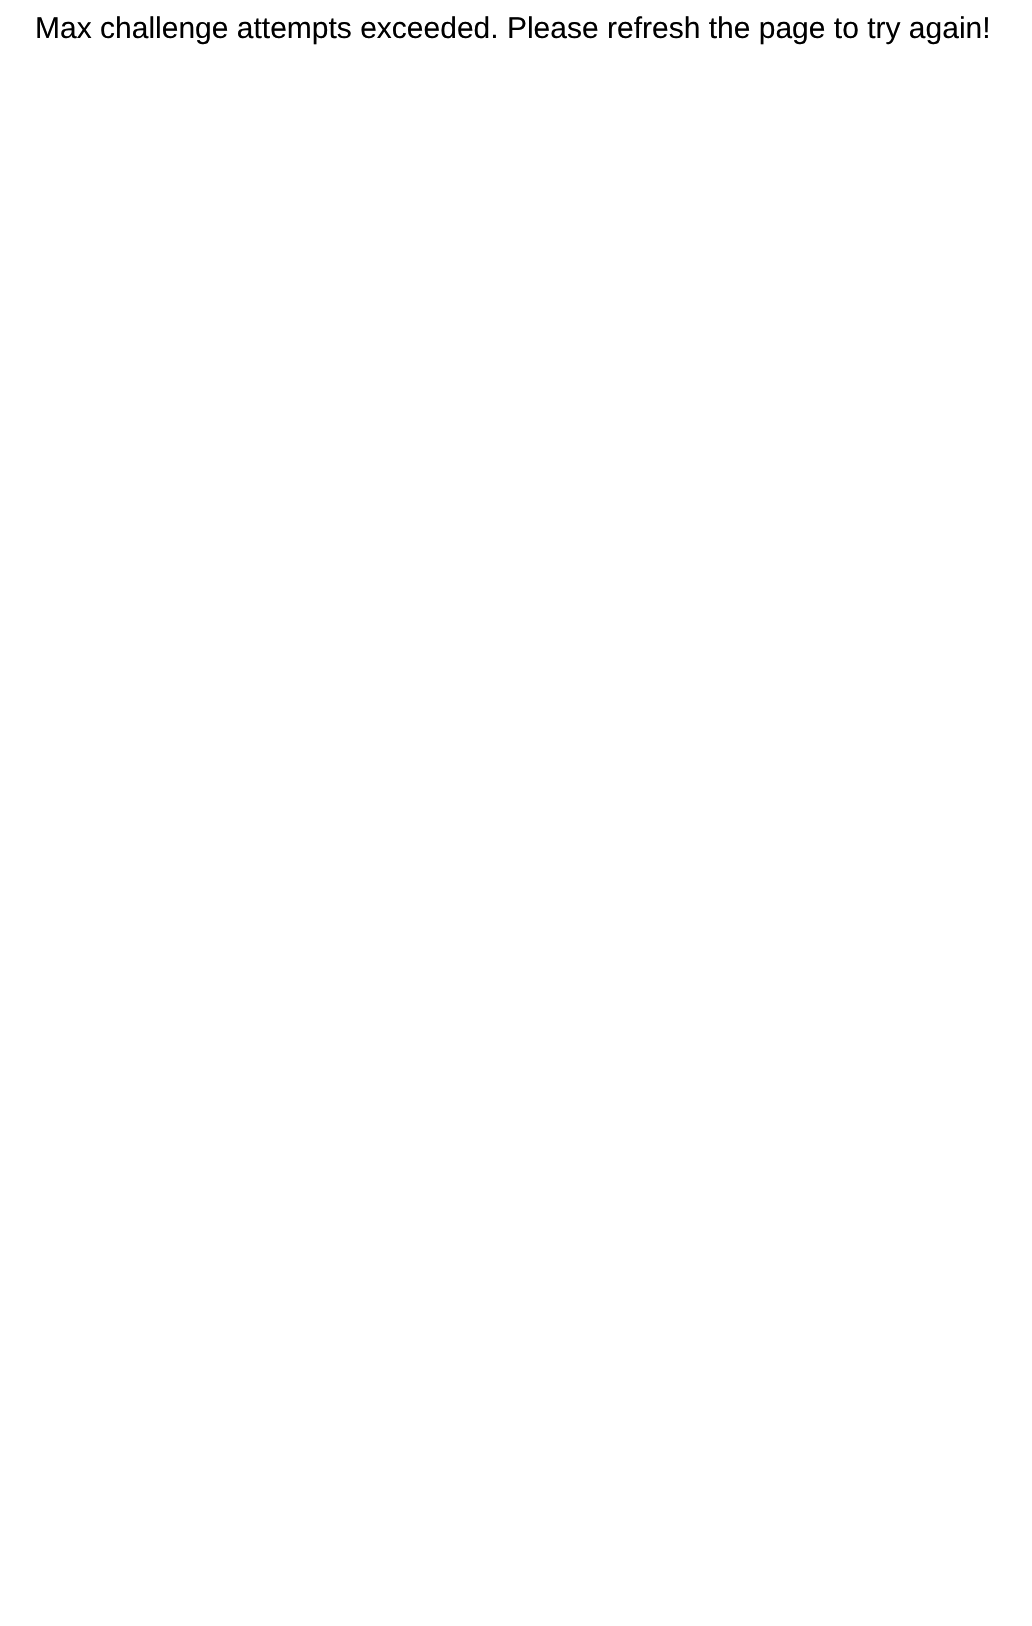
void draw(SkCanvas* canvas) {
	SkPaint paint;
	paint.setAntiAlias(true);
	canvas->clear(0xffffffff);
	SkFont f1(fontMgr->matchFamilyStyle("Liberation Sans", SkFontStyle::Normal()), 30);
	f1.setSubpixel(true);
	paint.setColor(0xff000000);
	canvas->drawString("Max challenge attempts exceeded. Please refresh the page to try again!", 35, 38, f1, paint);
}
